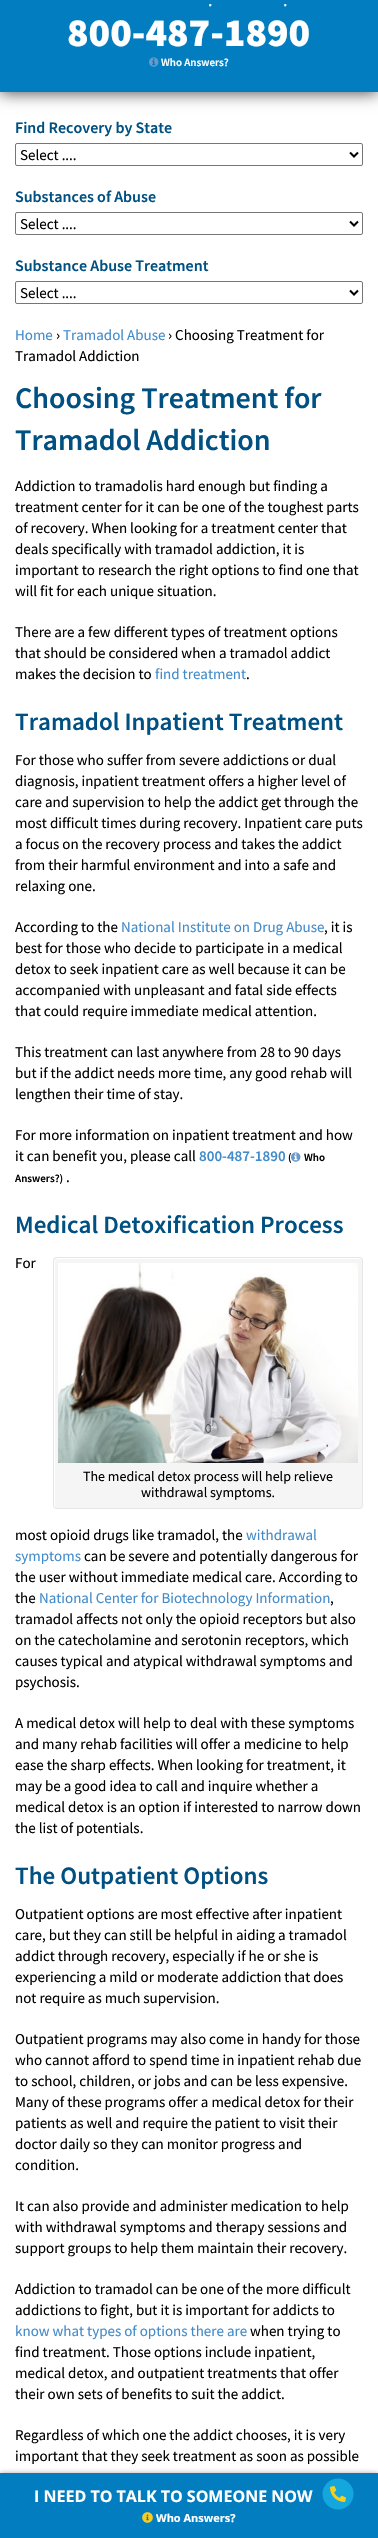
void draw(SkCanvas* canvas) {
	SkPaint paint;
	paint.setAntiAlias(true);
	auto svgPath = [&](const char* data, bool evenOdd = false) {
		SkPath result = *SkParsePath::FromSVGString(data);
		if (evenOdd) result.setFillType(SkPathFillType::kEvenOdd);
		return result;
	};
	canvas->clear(0xffffffff);
	paint.setColor(0xb3000000);
	paint.setMaskFilter(SkMaskFilter::MakeBlur(kNormal_SkBlurStyle, 7.5));
	canvas->drawRect(SkRect::MakeXYWH(0, -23, 378, 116), paint);
	paint.setMaskFilter(nullptr);
	paint.setColor(0xff027dc0);
	canvas->drawRect(SkRect::MakeXYWH(0, 0, 378, 92), paint);
	SkFont f1(fontMgr->matchFamilyStyle("Source Sans Pro", SkFontStyle::Normal()), 18);
	f1.setSubpixel(true);
	paint.setColor(0xffffffff);
	canvas->drawString(".", 208, 6, f1, paint);
	canvas->drawString(".", 283, 6, f1, paint);
	SkFont f2(fontMgr->matchFamilyStyle("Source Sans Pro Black", SkFontStyle(900, SkFontStyle::kNormal_Width, SkFontStyle::kUpright_Slant)), 40);
	f2.setSubpixel(true);
	canvas->drawString("800-487-1890", 67, 46, f2, paint);
	canvas->drawImageRect(SkImages::DeferredFromEncodedData(SkData::MakeFromFileName("img1.png")), SkRect::MakeXYWH(149, 57, 10, 10), SkSamplingOptions());
	SkFont f3(fontMgr->matchFamilyStyle("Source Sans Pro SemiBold", SkFontStyle(600, SkFontStyle::kNormal_Width, SkFontStyle::kUpright_Slant)), 11);
	f3.setSubpixel(true);
	canvas->drawString("Who Answers?", 161, 66, f3, paint);
	SkFont f4(fontMgr->matchFamilyStyle("Source Sans Pro SemiBold", SkFontStyle(600, SkFontStyle::kNormal_Width, SkFontStyle::kUpright_Slant)), 16);
	f4.setSubpixel(true);
	paint.setColor(0xff005082);
	canvas->drawString("Find Recovery by State", 15, 133, f4, paint);
	paint.setStroke(true);
	paint.setStrokeWidth(1);
	paint.setColor(0xff767676);
	canvas->drawRoundRect(SkRect::MakeXYWH(15.5, 143.5, 347, 22), 1.5, 1.5, paint);
	paint.setStrokeWidth(2);
	paint.setColor(0xff000000);
	canvas->drawPath(svgPath("M350 152.5L354 156.5L358 152.5"), paint);
	SkFont f5(fontMgr->matchFamilyStyle("Source Sans Pro", SkFontStyle::Normal()), 15);
	f5.setSubpixel(true);
	paint.setStroke(false);
	canvas->drawString("Select ....", 20, 160, f5, paint);
	paint.setColor(0xff005082);
	canvas->drawString("Substances of Abuse", 15, 202, f4, paint);
	paint.setStroke(true);
	paint.setStrokeWidth(1);
	paint.setColor(0xff767676);
	canvas->drawRoundRect(SkRect::MakeXYWH(15.5, 212.5, 347, 22), 1.5, 1.5, paint);
	paint.setStrokeWidth(2);
	paint.setColor(0xff000000);
	canvas->drawPath(svgPath("M350 221.5L354 225.5L358 221.5"), paint);
	paint.setStroke(false);
	canvas->drawString("Select ....", 20, 229, f5, paint);
	paint.setColor(0xff005082);
	canvas->drawString("Substance Abuse Treatment", 15, 271, f4, paint);
	paint.setStroke(true);
	paint.setStrokeWidth(1);
	paint.setColor(0xff767676);
	canvas->drawRoundRect(SkRect::MakeXYWH(15.5, 281.5, 347, 22), 1.5, 1.5, paint);
	paint.setStrokeWidth(2);
	paint.setColor(0xff000000);
	canvas->drawPath(svgPath("M350 290.5L354 294.5L358 290.5"), paint);
	paint.setStroke(false);
	canvas->drawString("Select ....", 20, 298, f5, paint);
	paint.setColor(0xff428bca);
	canvas->drawString("Home", 15, 340, f5, paint);
	paint.setColor(0xff000000);
	canvas->drawString("›", 56, 340, f5, paint);
	paint.setColor(0xff428bca);
	canvas->drawString("Tramadol Abuse", 63, 340, f5, paint);
	paint.setColor(0xff000000);
	canvas->drawString("› Choosing Treatment for", 168, 340, f5, paint);
	canvas->drawString("Tramadol Addiction", 15, 361, f5, paint);
	SkFont f6(fontMgr->matchFamilyStyle("Source Sans Pro SemiBold", SkFontStyle(600, SkFontStyle::kNormal_Width, SkFontStyle::kUpright_Slant)), 30);
	f6.setSubpixel(true);
	paint.setColor(0xff005082);
	canvas->drawString("Choosing Treatment for", 15, 408, f6, paint);
	canvas->drawString("Tramadol Addiction", 15, 450, f6, paint);
	paint.setColor(0xff000000);
	canvas->drawString("Addiction to tramadolis hard enough but finding a", 15, 491, f5, paint);
	canvas->drawString("treatment center for it can be one of the toughest parts", 15, 512, f5, paint);
	canvas->drawString("of recovery. When looking for a treatment center that", 15, 533, f5, paint);
	canvas->drawString("deals specifically with tramadol addiction, it is", 15, 554, f5, paint);
	canvas->drawString("important to research the right options to find one that", 15, 575, f5, paint);
	canvas->drawString("will fit for each unique situation.", 15, 596, f5, paint);
	canvas->drawString("There are a few different types of treatment options", 15, 637, f5, paint);
	canvas->drawString("that should be considered when a tramadol addict", 15, 658, f5, paint);
	canvas->drawString("makes the decision to", 15, 679, f5, paint);
	paint.setColor(0xff428bca);
	canvas->drawString("find treatment", 155, 679, f5, paint);
	paint.setColor(0xff000000);
	canvas->drawString(".", 246, 679, f5, paint);
	SkFont f7(fontMgr->matchFamilyStyle("Source Sans Pro SemiBold", SkFontStyle(600, SkFontStyle::kNormal_Width, SkFontStyle::kUpright_Slant)), 25);
	f7.setSubpixel(true);
	paint.setColor(0xff005082);
	canvas->drawString("Tramadol Inpatient Treatment", 15, 730, f7, paint);
	paint.setColor(0xff000000);
	canvas->drawString("For those who suffer from severe addictions or dual", 15, 765, f5, paint);
	canvas->drawString("diagnosis, inpatient treatment offers a higher level of", 15, 786, f5, paint);
	canvas->drawString("care and supervision to help the addict get through the", 15, 807, f5, paint);
	canvas->drawString("most difficult times during recovery. Inpatient care puts", 15, 828, f5, paint);
	canvas->drawString("a focus on the recovery process and takes the addict", 15, 849, f5, paint);
	canvas->drawString("from their harmful environment and into a safe and", 15, 870, f5, paint);
	canvas->drawString("relaxing one.", 15, 891, f5, paint);
	canvas->drawString("According to the", 15, 932, f5, paint);
	paint.setColor(0xff428bca);
	canvas->drawString("National Institute on Drug Abuse", 121, 932, f5, paint);
	paint.setColor(0xff000000);
	canvas->drawString(", it is", 324, 932, f5, paint);
	canvas->drawString("best for those who decide to participate in a medical", 15, 953, f5, paint);
	canvas->drawString("detox to seek inpatient care as well because it can be", 15, 974, f5, paint);
	canvas->drawString("accompanied with unpleasant and fatal side effects", 15, 995, f5, paint);
	canvas->drawString("that could require immediate medical attention.", 15, 1016, f5, paint);
	canvas->drawString("This treatment can last anywhere from 28 to 90 days", 15, 1057, f5, paint);
	canvas->drawString("but if the addict needs more time, any good rehab will", 15, 1078, f5, paint);
	canvas->drawString("lengthen their time of stay.", 15, 1099, f5, paint);
	canvas->drawString("For more information on inpatient treatment and how", 15, 1140, f5, paint);
	canvas->drawString("it can benefit you, please call", 15, 1161, f5, paint);
	SkFont f8(fontMgr->matchFamilyStyle("Source Sans Pro SemiBold", SkFontStyle(600, SkFontStyle::kNormal_Width, SkFontStyle::kUpright_Slant)), 15);
	f8.setSubpixel(true);
	paint.setColor(0xff428bca);
	canvas->drawString("800-487-1890", 199, 1161, f8, paint);
	paint.setColor(0xff000000);
	canvas->drawString("(", 288, 1161, f3, paint);
	canvas->drawImageRect(SkImages::DeferredFromEncodedData(SkData::MakeFromFileName("img2.png")), SkRect::MakeXYWH(291, 1152, 10, 10), SkSamplingOptions());
	canvas->drawString("Who", 304, 1161, f3, paint);
	canvas->drawString("Answers?)", 15, 1182, f3, paint);
	canvas->drawString(".", 66, 1182, f5, paint);
	paint.setColor(0xff005082);
	canvas->drawString("Medical Detoxification Process", 15, 1233, f7, paint);
	paint.setColor(0xff000000);
	canvas->drawString("For", 15, 1268, f5, paint);
	canvas->drawString("most opioid drugs like tramadol, the", 15, 1540, f5, paint);
	paint.setColor(0xff428bca);
	canvas->drawString("withdrawal", 246, 1540, f5, paint);
	canvas->drawString("symptoms", 15, 1561, f5, paint);
	paint.setColor(0xff000000);
	canvas->drawString("can be severe and potentially dangerous for", 84, 1561, f5, paint);
	canvas->drawString("the user without immediate medical care. According to", 15, 1582, f5, paint);
	canvas->drawString("the", 15, 1603, f5, paint);
	paint.setColor(0xff428bca);
	canvas->drawString("National Center for Biotechnology Information", 39, 1603, f5, paint);
	paint.setColor(0xff000000);
	canvas->drawString(",", 330, 1603, f5, paint);
	canvas->drawString("tramadol affects not only the opioid receptors but also", 15, 1624, f5, paint);
	canvas->drawString("on the catecholamine and serotonin receptors, which", 15, 1645, f5, paint);
	canvas->drawString("causes typical and atypical withdrawal symptoms and", 15, 1666, f5, paint);
	canvas->drawString("psychosis.", 15, 1687, f5, paint);
	paint.setColor(0xfff5f5f5);
	canvas->drawRoundRect(SkRect::MakeXYWH(53, 1257, 310, 252), 4, 4, paint);
	paint.setColor(0xffffffff);
	canvas->drawPath(svgPath("M57 1258C55 1258 54 1259 54 1261V1505C54 1507 56 1508 58 1508C56 1508 55 1507 55 1505V1260L56 1258H58Z"), paint);
	canvas->drawPath(svgPath("M57 1259H359C361 1259 362 1260 362 1262L361 1259L360 1258H57C55 1258 54 1260 54 1262C54 1260 55 1259 57 1259Z"), paint);
	paint.setStroke(true);
	paint.setStrokeWidth(1);
	paint.setColor(0xffe6e6e6);
	canvas->drawRoundRect(SkRect::MakeXYWH(53.5, 1257.5, 309, 251), 3.5, 3.5, paint);
	canvas->drawImageRect(SkImages::DeferredFromEncodedData(SkData::MakeFromFileName("img3.png")), SkRect::MakeXYWH(58, 1263, 300, 200), SkSamplingOptions());
	SkFont f9(fontMgr->matchFamilyStyle("Source Sans Pro", SkFontStyle::Normal()), 14);
	f9.setSubpixel(true);
	paint.setStroke(false);
	paint.setColor(0xff000000);
	canvas->drawString("The medical detox process will help relieve", 83, 1481, f9, paint);
	canvas->drawString("withdrawal symptoms.", 141, 1497, f9, paint);
	canvas->drawString("A medical detox will help to deal with these symptoms", 15, 1728, f5, paint);
	canvas->drawString("and many rehab facilities will offer a medicine to help", 15, 1749, f5, paint);
	canvas->drawString("ease the sharp effects. When looking for treatment, it", 15, 1770, f5, paint);
	canvas->drawString("may be a good idea to call and inquire whether a", 15, 1791, f5, paint);
	canvas->drawString("medical detox is an option if interested to narrow down", 15, 1812, f5, paint);
	canvas->drawString("the list of potentials.", 15, 1833, f5, paint);
	paint.setColor(0xff005082);
	canvas->drawString("The Outpatient Options", 15, 1884, f7, paint);
	paint.setColor(0xff000000);
	canvas->drawString("Outpatient options are most effective after inpatient", 15, 1919, f5, paint);
	canvas->drawString("care, but they can still be helpful in aiding a tramadol", 15, 1940, f5, paint);
	canvas->drawString("addict through recovery, especially if he or she is", 15, 1961, f5, paint);
	canvas->drawString("experiencing a mild or moderate addiction that does", 15, 1982, f5, paint);
	canvas->drawString("not require as much supervision.", 15, 2003, f5, paint);
	canvas->drawString("Outpatient programs may also come in handy for those", 15, 2044, f5, paint);
	canvas->drawString("who cannot afford to spend time in inpatient rehab due", 15, 2065, f5, paint);
	canvas->drawString("to school, children, or jobs and can be less expensive.", 15, 2086, f5, paint);
	canvas->drawString("Many of these programs offer a medical detox for their", 15, 2107, f5, paint);
	canvas->drawString("patients as well and require the patient to visit their", 15, 2128, f5, paint);
	canvas->drawString("doctor daily so they can monitor progress and", 15, 2149, f5, paint);
	canvas->drawString("condition.", 15, 2170, f5, paint);
	canvas->drawString("It can also provide and administer medication to help", 15, 2211, f5, paint);
	canvas->drawString("with withdrawal symptoms and therapy sessions and", 15, 2232, f5, paint);
	canvas->drawString("support groups to help them maintain their recovery.", 15, 2253, f5, paint);
	canvas->drawString("Addiction to tramadol can be one of the more difficult", 15, 2294, f5, paint);
	canvas->drawString("addictions to fight, but it is important for addicts to", 15, 2315, f5, paint);
	paint.setColor(0xff428bca);
	canvas->drawString("know what types of options there are", 15, 2336, f5, paint);
	paint.setColor(0xff000000);
	canvas->drawString("when trying to", 250, 2336, f5, paint);
	canvas->drawString("find treatment. Those options include inpatient,", 15, 2357, f5, paint);
	canvas->drawString("medical detox, and outpatient treatments that offer", 15, 2378, f5, paint);
	canvas->drawString("their own sets of benefits to suit the addict.", 15, 2399, f5, paint);
	canvas->drawString("Regardless of which one the addict chooses, it is very", 15, 2440, f5, paint);
	canvas->drawString("important that they seek treatment as soon as possible", 15, 2461, f5, paint);
	paint.setColor(0x663b2727);
	paint.setMaskFilter(SkMaskFilter::MakeBlur(kNormal_SkBlurStyle, 2.5));
	canvas->drawRect(SkRect::MakeXYWH(0, 2473, 378, 65), paint);
	paint.setMaskFilter(nullptr);
	paint.setColor(0xff027dc0);
	canvas->drawRect(SkRect::MakeXYWH(0, 2473, 378, 65), paint);
	SkFont f10(fontMgr->matchFamilyStyle("Open Sans", SkFontStyle::Bold()), 16);
	f10.setSubpixel(true);
	paint.setColor(0xffffffff);
	canvas->drawString("I NEED TO TALK TO SOMEONE NOW", 34, 2502, f10, paint);
	canvas->drawImageRect(SkImages::DeferredFromEncodedData(SkData::MakeFromFileName("img4.png")), SkRect::MakeXYWH(322, 2478, 32, 32), SkSamplingOptions());
	canvas->drawImageRect(SkImages::DeferredFromEncodedData(SkData::MakeFromFileName("img5.png")), SkRect::MakeXYWH(330, 2486, 16, 16), SkSamplingOptions());
	canvas->drawImageRect(SkImages::DeferredFromEncodedData(SkData::MakeFromFileName("img6.png")), SkRect::MakeXYWH(142, 2512, 11, 11), SkSamplingOptions());
	SkFont f11(fontMgr->matchFamilyStyle("Open Sans", SkFontStyle::Bold()), 11);
	f11.setSubpixel(true);
	canvas->drawString("Who Answers?", 156, 2522, f11, paint);
}
